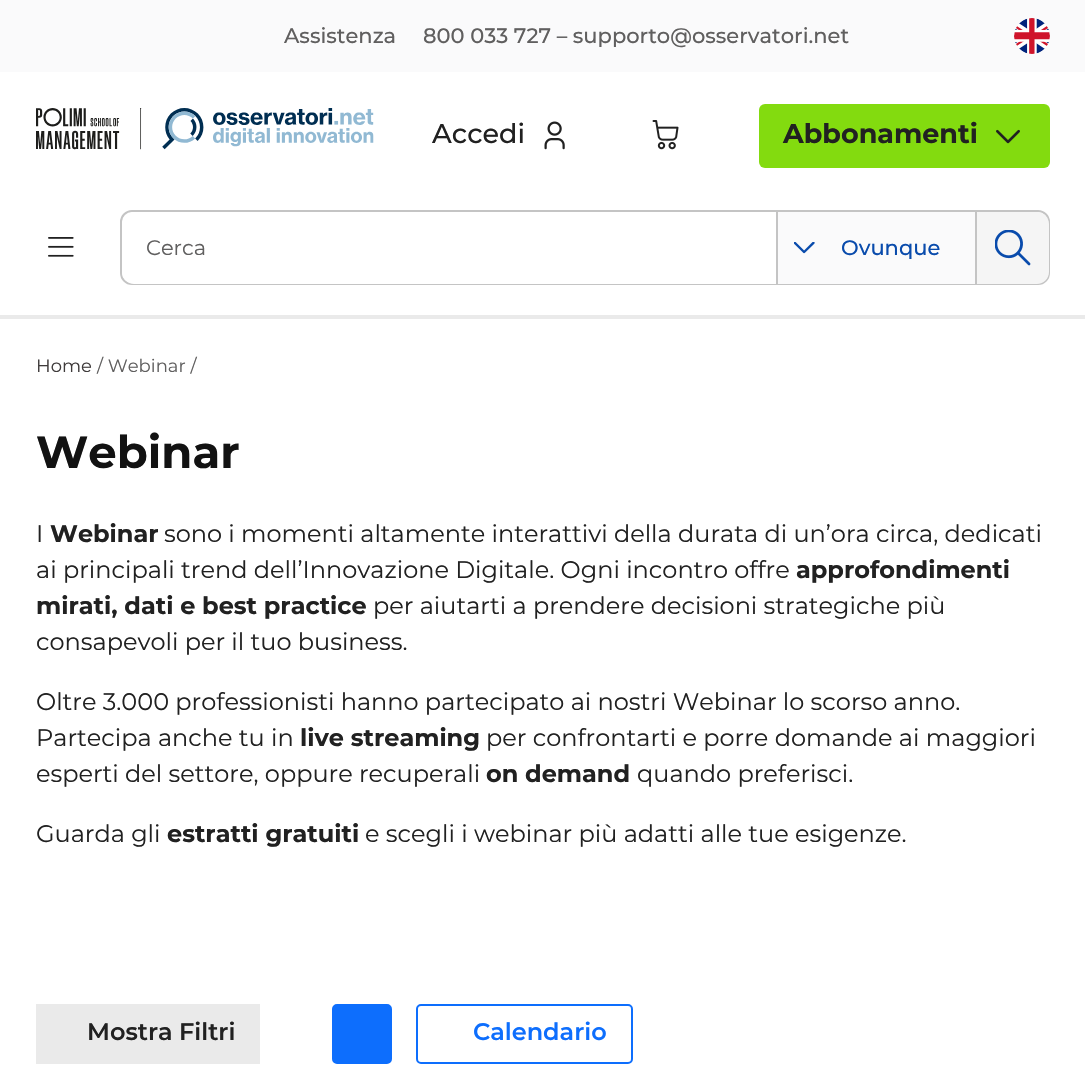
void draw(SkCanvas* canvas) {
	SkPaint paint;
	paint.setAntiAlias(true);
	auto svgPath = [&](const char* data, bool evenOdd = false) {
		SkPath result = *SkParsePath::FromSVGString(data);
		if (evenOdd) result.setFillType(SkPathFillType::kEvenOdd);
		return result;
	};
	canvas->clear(0xffffffff);
	paint.setColor(0xffeaeaea);
	canvas->drawRect(SkRect::MakeXYWH(0, 315, 1085, 4), paint);
	paint.setColor(0xfffafafb);
	canvas->drawRect(SkRect::MakeXYWH(0, 0, 1085, 72), paint);
	SkFont f1(fontMgr->matchFamilyStyle("Montserrat", SkFontStyle(500, SkFontStyle::kNormal_Width, SkFontStyle::kUpright_Slant)), 21);
	f1.setSubpixel(true);
	paint.setColor(0xff605f5f);
	canvas->drawString("Assistenza", 284, 43, f1, paint);
	canvas->drawString("800 033 727 – supporto@osservatori.net", 423, 43, f1, paint);
	canvas->drawImageRect(SkImages::DeferredFromEncodedData(SkData::MakeFromFileName("img1.png")), SkRect::MakeXYWH(1014, 18, 36, 36), SkSamplingOptions());
	canvas->drawImageRect(SkImages::DeferredFromEncodedData(SkData::MakeFromFileName("img2.png")), SkRect::MakeXYWH(36, 108, 338, 42), SkSamplingOptions());
	SkFont f2(fontMgr->matchFamilyStyle("Montserrat", SkFontStyle(500, SkFontStyle::kNormal_Width, SkFontStyle::kUpright_Slant)), 27);
	f2.setSubpixel(true);
	paint.setColor(0xff212121);
	canvas->drawString("Accedi", 432, 143, f2, paint);
	canvas->drawImageRect(SkImages::DeferredFromEncodedData(SkData::MakeFromFileName("img3.png")), SkRect::MakeXYWH(544, 121, 21, 29), SkSamplingOptions());
	canvas->drawImageRect(SkImages::DeferredFromEncodedData(SkData::MakeFromFileName("img4.png")), SkRect::MakeXYWH(652, 120, 27, 30), SkSamplingOptions());
	paint.setColor(0xff83db0f);
	canvas->drawRoundRect(SkRect::MakeXYWH(759, 104, 291, 64), 6, 6, paint);
	SkFont f3(fontMgr->matchFamilyStyle("Montserrat", SkFontStyle::Bold()), 27);
	f3.setSubpixel(true);
	paint.setColor(0xff212121);
	canvas->drawString("Abbonamenti", 783, 143, f3, paint);
	canvas->drawImageRect(SkImages::DeferredFromEncodedData(SkData::MakeFromFileName("img5.png")), SkRect::MakeXYWH(996, 129, 24, 15), SkSamplingOptions());
	canvas->drawImageRect(SkImages::DeferredFromEncodedData(SkData::MakeFromFileName("img6.png")), SkRect::MakeXYWH(48, 237, 26, 20), SkSamplingOptions());
	paint.setStroke(true);
	paint.setStrokeWidth(2);
	paint.setColor(0xffc4c4c4);
	canvas->drawRoundRect(SkRect::MakeXYWH(121, 211, 928, 73), 11, 11, paint);
	paint.setStroke(false);
	paint.setColor(0xffffffff);
	canvas->drawPath(svgPath("M134 212H776V284H134C127.5 284 122 278.5 122 272V224C122 217.5 127.5 212 134 212Z"), paint);
	SkFont f4(fontMgr->matchFamilyStyle("Montserrat", SkFontStyle::Normal()), 21);
	f4.setSubpixel(true);
	paint.setColor(0xff605f5f);
	canvas->drawString("Cerca", 146, 255, f4, paint);
	paint.setColor(0xfffafafb);
	canvas->drawRect(SkRect::MakeXYWH(778, 212, 197, 72), paint);
	paint.setColor(0xffc4c4c4);
	canvas->drawRect(SkRect::MakeXYWH(776, 212, 2, 72), paint);
	canvas->drawImageRect(SkImages::DeferredFromEncodedData(SkData::MakeFromFileName("img7.png")), SkRect::MakeXYWH(794, 242, 21, 12), SkSamplingOptions());
	paint.setColor(0xff094bac);
	canvas->drawString("Ovunque", 841, 255, f1, paint);
	paint.setColor(0xfff5f5f5);
	canvas->drawPath(svgPath("M977 212H1037C1043.5 212 1049 217.5 1049 224V272C1049 278.5 1043.5 284 1037 284H977Z"), paint);
	paint.setColor(0xffc4c4c4);
	canvas->drawRect(SkRect::MakeXYWH(975, 212, 2, 72), paint);
	canvas->drawImageRect(SkImages::DeferredFromEncodedData(SkData::MakeFromFileName("img8.png")), SkRect::MakeXYWH(995, 230, 36, 36), SkSamplingOptions());
	SkFont f5(fontMgr->matchFamilyStyle("Montserrat", SkFontStyle::Normal()), 18);
	f5.setSubpixel(true);
	paint.setColor(0xff3f3b3b);
	canvas->drawString("Home", 36, 372, f5, paint);
	paint.setColor(0xff605f5f);
	canvas->drawString("/ Webinar /", 97, 372, f5, paint);
	SkFont f6(fontMgr->matchFamilyStyle("Montserrat", SkFontStyle::Bold()), 45);
	f6.setSubpixel(true);
	paint.setColor(0xff121212);
	canvas->drawString("Webinar", 36, 468, f6, paint);
	SkFont f7(fontMgr->matchFamilyStyle("Montserrat", SkFontStyle::Normal()), 24);
	f7.setSubpixel(true);
	paint.setColor(0xff212121);
	canvas->drawString("I", 36, 542, f7, paint);
	SkFont f8(fontMgr->matchFamilyStyle("Montserrat", SkFontStyle::Bold()), 24);
	f8.setSubpixel(true);
	canvas->drawString("Webinar", 50, 542, f8, paint);
	canvas->drawString("sono i momenti altamente interattivi della durata di un’ora circa, dedicati", 164, 542, f7, paint);
	canvas->drawString("ai principali trend dell’Innovazione Digitale. Ogni incontro offre", 36, 578, f7, paint);
	canvas->drawString("approfondimenti", 796, 578, f8, paint);
	canvas->drawString("mirati, dati e best practice", 36, 614, f8, paint);
	canvas->drawString("per aiutarti a prendere decisioni strategiche più", 373, 614, f7, paint);
	canvas->drawString("consapevoli per il tuo business.", 36, 650, f7, paint);
	canvas->drawString("Oltre 3.000 professionisti hanno partecipato ai nostri Webinar lo scorso anno.", 36, 710, f7, paint);
	canvas->drawString("Partecipa anche tu in", 36, 746, f7, paint);
	canvas->drawString("live streaming", 300, 746, f8, paint);
	canvas->drawString("per confrontarti e porre domande ai maggiori", 486, 746, f7, paint);
	canvas->drawString("esperti del settore, oppure recuperali", 36, 782, f7, paint);
	canvas->drawString("on demand", 486, 782, f8, paint);
	canvas->drawString("quando preferisci.", 637, 782, f7, paint);
	canvas->drawString("Guarda gli", 36, 842, f7, paint);
	canvas->drawString("estratti gratuiti", 167, 842, f8, paint);
	canvas->drawString("e scegli i webinar più adatti alle tue esigenze.", 365, 842, f7, paint);
	paint.setColor(0xffeaeaea);
	canvas->drawRect(SkRect::MakeXYWH(36, 1004, 224, 60), paint);
	SkFont f9(fontMgr->matchFamilyStyle("Montserrat", SkFontStyle(600, SkFontStyle::kNormal_Width, SkFontStyle::kUpright_Slant)), 24);
	f9.setSubpixel(true);
	paint.setColor(0xff212121);
	canvas->drawString("Mostra", 87, 1040, f9, paint);
	canvas->drawString("Filtri", 179, 1040, f9, paint);
	paint.setColor(0xff0d6efd);
	canvas->drawRoundRect(SkRect::MakeXYWH(333, 1005, 58, 58), 4, 4, paint);
	paint.setStroke(true);
	canvas->drawRoundRect(SkRect::MakeXYWH(333, 1005, 58, 58), 4, 4, paint);
	canvas->drawRoundRect(SkRect::MakeXYWH(417, 1005, 215, 58), 4, 4, paint);
	paint.setStroke(false);
	canvas->drawString("Calendario", 473, 1040, f9, paint);
}
